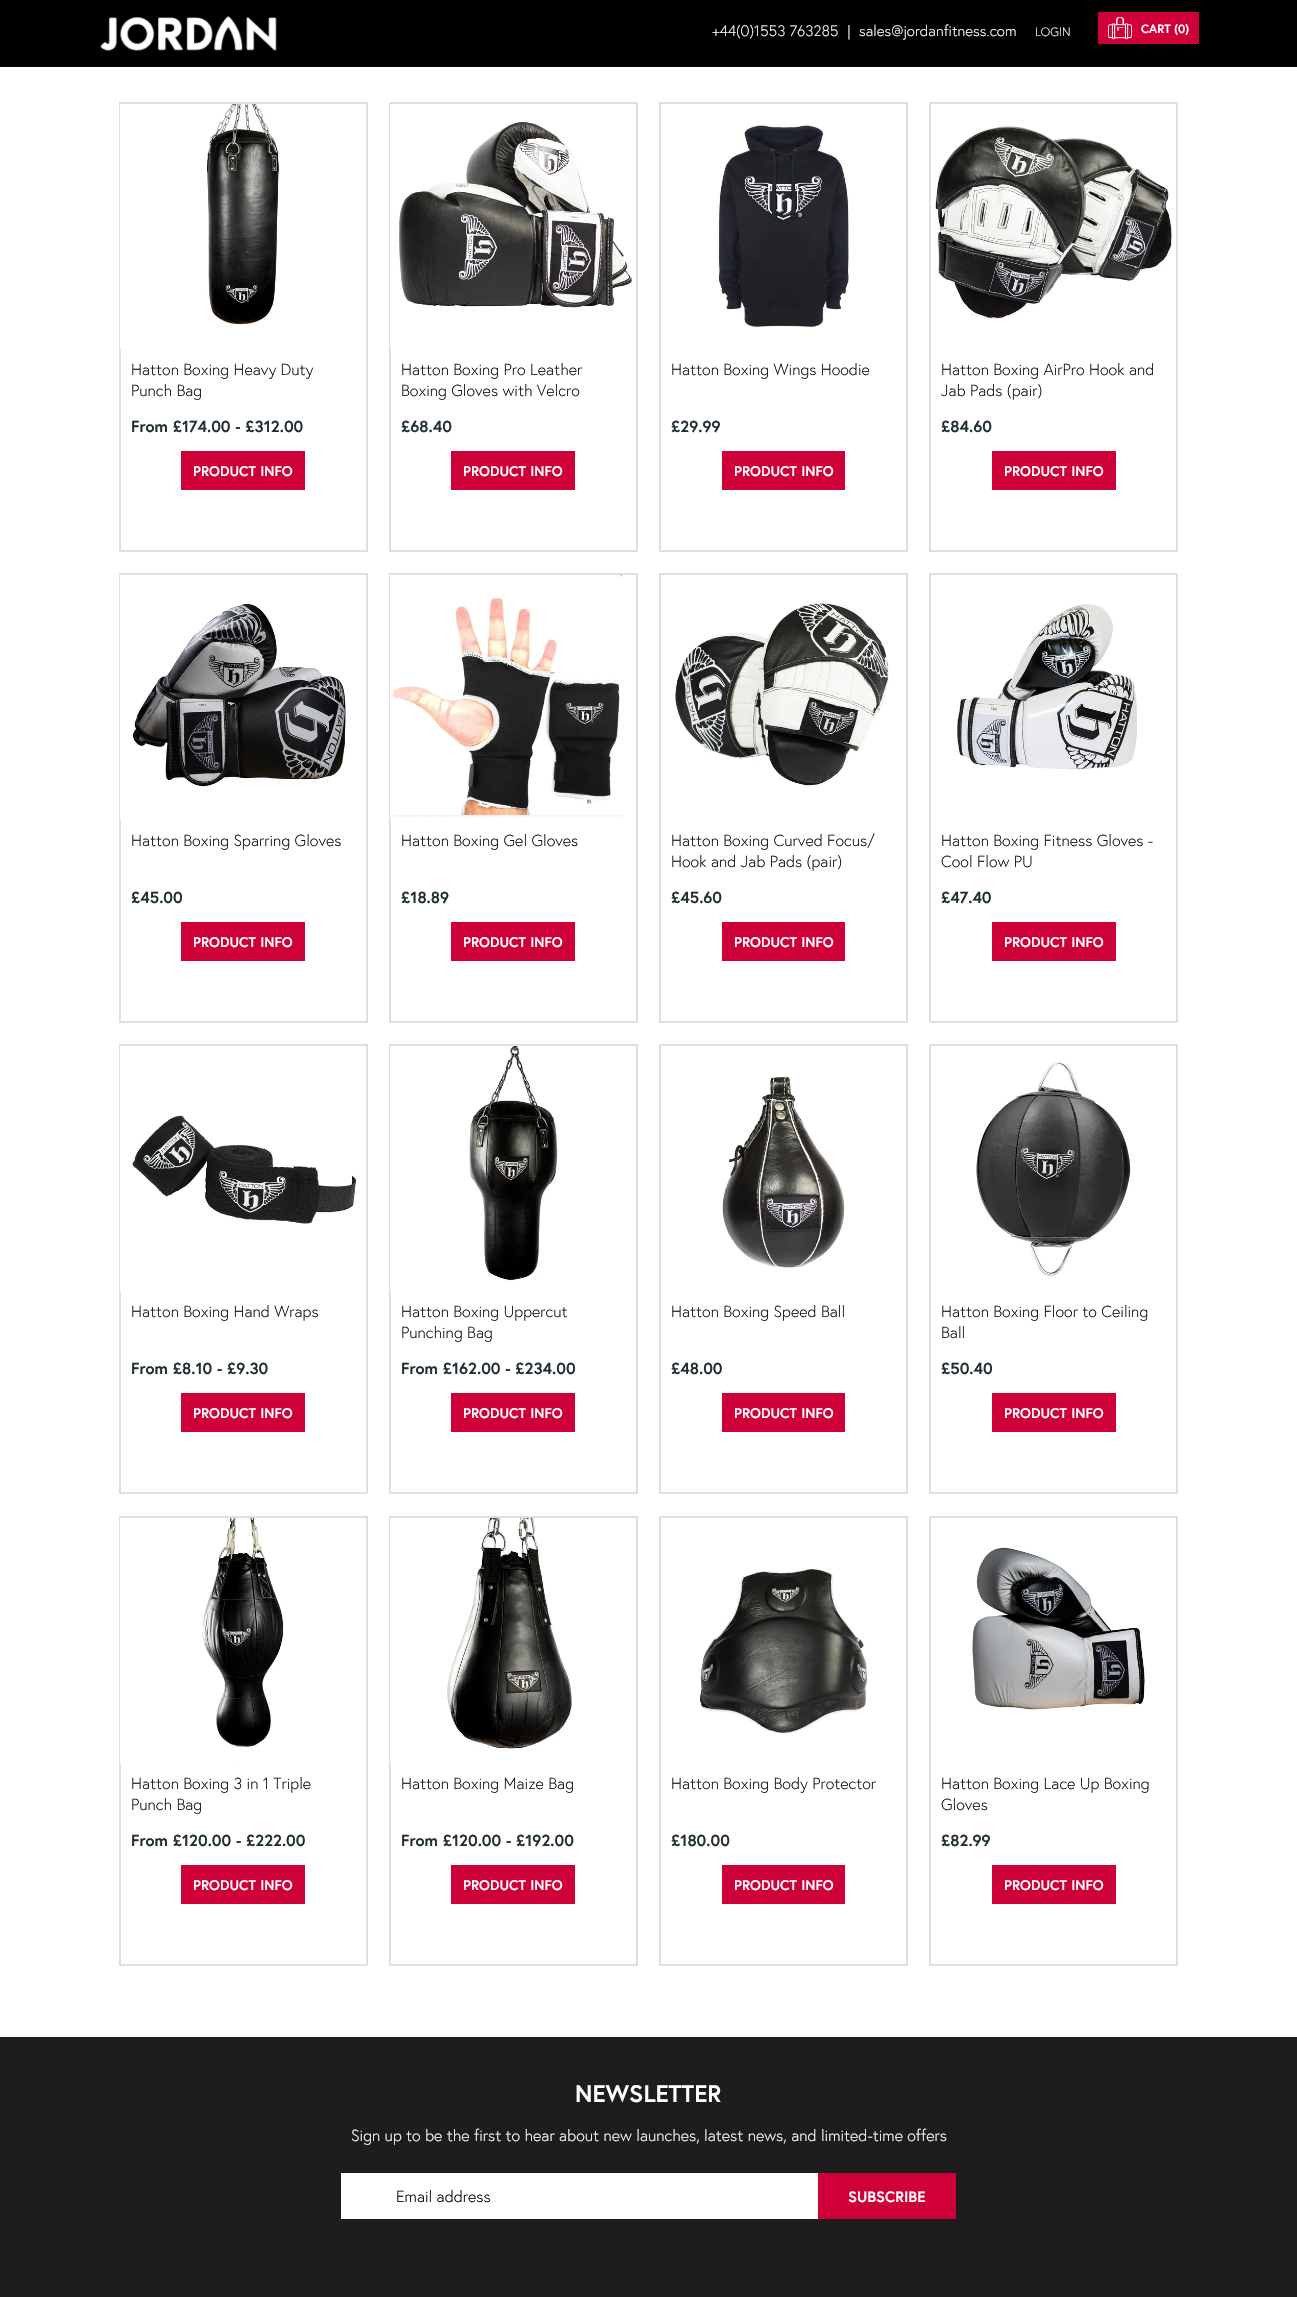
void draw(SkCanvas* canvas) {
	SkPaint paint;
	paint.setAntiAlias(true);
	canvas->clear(0xffffffff);
	paint.setColor(0xff000000);
	canvas->drawRect(SkRect::MakeXYWH(0, 0, 1297, 67), paint);
	canvas->drawImageRect(SkImages::DeferredFromEncodedData(SkData::MakeFromFileName("img1.png")), SkRect::MakeXYWH(100, 16, 177, 35), SkSamplingOptions());
	SkFont f1(fontMgr->matchFamilyStyle("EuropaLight", SkFontStyle(300, SkFontStyle::kNormal_Width, SkFontStyle::kUpright_Slant)), 15);
	f1.setSubpixel(true);
	paint.setColor(0xffffffff);
	canvas->drawString("+44(0)1553 763285", 712, 36, f1, paint);
	canvas->drawString("|", 847, 36, f1, paint);
	canvas->drawString("sales@jordanfitness.com", 859, 36, f1, paint);
	SkFont f2(fontMgr->matchFamilyStyle("EuropaLight", SkFontStyle(300, SkFontStyle::kNormal_Width, SkFontStyle::kUpright_Slant)), 12);
	f2.setSubpixel(true);
	canvas->drawString("LOGIN", 1035, 36, f2, paint);
	paint.setColor(0xffce0037);
	canvas->drawRect(SkRect::MakeXYWH(1098, 12, 101, 32), paint);
	canvas->drawImageRect(SkImages::DeferredFromEncodedData(SkData::MakeFromFileName("img2.png")), SkRect::MakeXYWH(1108, 17, 24, 23), SkSamplingOptions());
	SkFont f3(fontMgr->matchFamilyStyle("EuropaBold", SkFontStyle::Bold()), 12);
	f3.setSubpixel(true);
	paint.setColor(0xffffffff);
	canvas->drawString("CART (0)", 1141, 33, f3, paint);
	paint.setStroke(true);
	paint.setStrokeWidth(2);
	paint.setColor(0xffdfdfdf);
	canvas->drawRect(SkRect::MakeXYWH(120, 103, 247, 448), paint);
	canvas->drawImageRect(SkImages::DeferredFromEncodedData(SkData::MakeFromFileName("img3.png")), SkRect::MakeXYWH(120, 104, 160, 245), SkSamplingOptions());
	SkFont f4(fontMgr->matchFamilyStyle("EuropaLight", SkFontStyle(300, SkFontStyle::kNormal_Width, SkFontStyle::kUpright_Slant)), 16);
	f4.setSubpixel(true);
	paint.setStroke(false);
	paint.setColor(0xff121212);
	canvas->drawString("Hatton Boxing Heavy Duty", 131, 375, f4, paint);
	canvas->drawString("Punch Bag", 131, 396, f4, paint);
	SkFont f5(fontMgr->matchFamilyStyle("EuropaBold", SkFontStyle::Bold()), 16);
	f5.setSubpixel(true);
	paint.setColor(0xff213034);
	canvas->drawString("From £174.00 - £312.00", 131, 432, f5, paint);
	paint.setColor(0xffcd0037);
	canvas->drawRect(SkRect::MakeXYWH(181, 451, 124, 39), paint);
	SkFont f6(fontMgr->matchFamilyStyle("EuropaBold", SkFontStyle::Bold()), 14);
	f6.setSubpixel(true);
	paint.setColor(0xffffffff);
	canvas->drawString("PRODUCT INFO", 193, 476, f6, paint);
	paint.setStroke(true);
	paint.setColor(0xffdfdfdf);
	canvas->drawRect(SkRect::MakeXYWH(390, 103, 247, 448), paint);
	canvas->drawImageRect(SkImages::DeferredFromEncodedData(SkData::MakeFromFileName("img4.png")), SkRect::MakeXYWH(390, 104, 242, 245), SkSamplingOptions());
	paint.setStroke(false);
	paint.setColor(0xff121212);
	canvas->drawString("Hatton Boxing Pro Leather", 401, 375, f4, paint);
	canvas->drawString("Boxing Gloves with Velcro", 401, 396, f4, paint);
	paint.setColor(0xff213034);
	canvas->drawString("£68.40", 401, 432, f5, paint);
	paint.setColor(0xffcd0037);
	canvas->drawRect(SkRect::MakeXYWH(451, 451, 124, 39), paint);
	paint.setColor(0xffffffff);
	canvas->drawString("PRODUCT INFO", 463, 476, f6, paint);
	paint.setStroke(true);
	paint.setColor(0xffdfdfdf);
	canvas->drawRect(SkRect::MakeXYWH(660, 103, 247, 448), paint);
	canvas->drawImageRect(SkImages::DeferredFromEncodedData(SkData::MakeFromFileName("img5.png")), SkRect::MakeXYWH(716, 124, 134, 205), SkSamplingOptions());
	paint.setStroke(false);
	paint.setColor(0xff121212);
	canvas->drawString("Hatton Boxing Wings Hoodie", 671, 375, f4, paint);
	paint.setColor(0xff213034);
	canvas->drawString("£29.99", 671, 432, f5, paint);
	paint.setColor(0xffcd0037);
	canvas->drawRect(SkRect::MakeXYWH(722, 451, 123, 39), paint);
	paint.setColor(0xffffffff);
	canvas->drawString("PRODUCT INFO", 734, 476, f6, paint);
	paint.setStroke(true);
	paint.setColor(0xffdfdfdf);
	canvas->drawRect(SkRect::MakeXYWH(930, 103, 247, 448), paint);
	canvas->drawImageRect(SkImages::DeferredFromEncodedData(SkData::MakeFromFileName("img6.png")), SkRect::MakeXYWH(935, 126, 237, 194), SkSamplingOptions());
	paint.setStroke(false);
	paint.setColor(0xff121212);
	canvas->drawString("Hatton Boxing AirPro Hook and", 941, 375, f4, paint);
	canvas->drawString("Jab Pads (pair)", 941, 396, f4, paint);
	paint.setColor(0xff213034);
	canvas->drawString("£84.60", 941, 432, f5, paint);
	paint.setColor(0xffcd0037);
	canvas->drawRect(SkRect::MakeXYWH(992, 451, 124, 39), paint);
	paint.setColor(0xffffffff);
	canvas->drawString("PRODUCT INFO", 1004, 476, f6, paint);
	paint.setStroke(true);
	paint.setColor(0xffdfdfdf);
	canvas->drawRect(SkRect::MakeXYWH(120, 574, 247, 448), paint);
	canvas->drawImageRect(SkImages::DeferredFromEncodedData(SkData::MakeFromFileName("img7.png")), SkRect::MakeXYWH(120, 575, 227, 245), SkSamplingOptions());
	paint.setStroke(false);
	paint.setColor(0xff121212);
	canvas->drawString("Hatton Boxing Sparring Gloves", 131, 846, f4, paint);
	paint.setColor(0xff213034);
	canvas->drawString("£45.00", 131, 903, f5, paint);
	paint.setColor(0xffcd0037);
	canvas->drawRect(SkRect::MakeXYWH(181, 922, 124, 39), paint);
	paint.setColor(0xffffffff);
	canvas->drawString("PRODUCT INFO", 193, 947, f6, paint);
	paint.setStroke(true);
	paint.setColor(0xffdfdfdf);
	canvas->drawRect(SkRect::MakeXYWH(390, 574, 247, 448), paint);
	canvas->drawImageRect(SkImages::DeferredFromEncodedData(SkData::MakeFromFileName("img8.png")), SkRect::MakeXYWH(390, 575, 232, 245), SkSamplingOptions());
	paint.setStroke(false);
	paint.setColor(0xff121212);
	canvas->drawString("Hatton Boxing Gel Gloves", 401, 846, f4, paint);
	paint.setColor(0xff213034);
	canvas->drawString("£18.89", 401, 903, f5, paint);
	paint.setColor(0xffcd0037);
	canvas->drawRect(SkRect::MakeXYWH(451, 922, 124, 39), paint);
	paint.setColor(0xffffffff);
	canvas->drawString("PRODUCT INFO", 463, 947, f6, paint);
	paint.setStroke(true);
	paint.setColor(0xffdfdfdf);
	canvas->drawRect(SkRect::MakeXYWH(660, 574, 247, 448), paint);
	canvas->drawImageRect(SkImages::DeferredFromEncodedData(SkData::MakeFromFileName("img9.png")), SkRect::MakeXYWH(675, 603, 215, 183), SkSamplingOptions());
	paint.setStroke(false);
	paint.setColor(0xff121212);
	canvas->drawString("Hatton Boxing Curved Focus/", 671, 846, f4, paint);
	canvas->drawString("Hook and Jab Pads (pair)", 671, 867, f4, paint);
	paint.setColor(0xff213034);
	canvas->drawString("£45.60", 671, 903, f5, paint);
	paint.setColor(0xffcd0037);
	canvas->drawRect(SkRect::MakeXYWH(722, 922, 123, 39), paint);
	paint.setColor(0xffffffff);
	canvas->drawString("PRODUCT INFO", 734, 947, f6, paint);
	paint.setStroke(true);
	paint.setColor(0xffdfdfdf);
	canvas->drawRect(SkRect::MakeXYWH(930, 574, 247, 448), paint);
	canvas->drawImageRect(SkImages::DeferredFromEncodedData(SkData::MakeFromFileName("img10.png")), SkRect::MakeXYWH(957, 604, 180, 166), SkSamplingOptions());
	paint.setStroke(false);
	paint.setColor(0xff121212);
	canvas->drawString("Hatton Boxing Fitness Gloves -", 941, 846, f4, paint);
	canvas->drawString("Cool Flow PU", 941, 867, f4, paint);
	paint.setColor(0xff213034);
	canvas->drawString("£47.40", 941, 903, f5, paint);
	paint.setColor(0xffcd0037);
	canvas->drawRect(SkRect::MakeXYWH(992, 922, 124, 39), paint);
	paint.setColor(0xffffffff);
	canvas->drawString("PRODUCT INFO", 1004, 947, f6, paint);
	paint.setStroke(true);
	paint.setColor(0xffdfdfdf);
	canvas->drawRect(SkRect::MakeXYWH(120, 1045, 247, 448), paint);
	canvas->drawImageRect(SkImages::DeferredFromEncodedData(SkData::MakeFromFileName("img11.png")), SkRect::MakeXYWH(120, 1046, 237, 245), SkSamplingOptions());
	paint.setStroke(false);
	paint.setColor(0xff121212);
	canvas->drawString("Hatton Boxing Hand Wraps", 131, 1317, f4, paint);
	paint.setColor(0xff213034);
	canvas->drawString("From £8.10 - £9.30", 131, 1374, f5, paint);
	paint.setColor(0xffcd0037);
	canvas->drawRect(SkRect::MakeXYWH(181, 1393, 124, 39), paint);
	paint.setColor(0xffffffff);
	canvas->drawString("PRODUCT INFO", 193, 1418, f6, paint);
	paint.setStroke(true);
	paint.setColor(0xffdfdfdf);
	canvas->drawRect(SkRect::MakeXYWH(390, 1045, 247, 448), paint);
	canvas->drawImageRect(SkImages::DeferredFromEncodedData(SkData::MakeFromFileName("img12.png")), SkRect::MakeXYWH(390, 1046, 168, 245), SkSamplingOptions());
	paint.setStroke(false);
	paint.setColor(0xff121212);
	canvas->drawString("Hatton Boxing Uppercut", 401, 1317, f4, paint);
	canvas->drawString("Punching Bag", 401, 1338, f4, paint);
	paint.setColor(0xff213034);
	canvas->drawString("From £162.00 - £234.00", 401, 1374, f5, paint);
	paint.setColor(0xffcd0037);
	canvas->drawRect(SkRect::MakeXYWH(451, 1393, 124, 39), paint);
	paint.setColor(0xffffffff);
	canvas->drawString("PRODUCT INFO", 463, 1418, f6, paint);
	paint.setStroke(true);
	paint.setColor(0xffdfdfdf);
	canvas->drawRect(SkRect::MakeXYWH(660, 1045, 247, 448), paint);
	canvas->drawImageRect(SkImages::DeferredFromEncodedData(SkData::MakeFromFileName("img13.png")), SkRect::MakeXYWH(722, 1077, 123, 192), SkSamplingOptions());
	paint.setStroke(false);
	paint.setColor(0xff121212);
	canvas->drawString("Hatton Boxing Speed Ball", 671, 1317, f4, paint);
	paint.setColor(0xff213034);
	canvas->drawString("£48.00", 671, 1374, f5, paint);
	paint.setColor(0xffcd0037);
	canvas->drawRect(SkRect::MakeXYWH(722, 1393, 123, 39), paint);
	paint.setColor(0xffffffff);
	canvas->drawString("PRODUCT INFO", 734, 1418, f6, paint);
	paint.setStroke(true);
	paint.setColor(0xffdfdfdf);
	canvas->drawRect(SkRect::MakeXYWH(930, 1045, 247, 448), paint);
	canvas->drawImageRect(SkImages::DeferredFromEncodedData(SkData::MakeFromFileName("img14.png")), SkRect::MakeXYWH(976, 1061, 155, 215), SkSamplingOptions());
	paint.setStroke(false);
	paint.setColor(0xff121212);
	canvas->drawString("Hatton Boxing Floor to Ceiling", 941, 1317, f4, paint);
	canvas->drawString("Ball", 941, 1338, f4, paint);
	paint.setColor(0xff213034);
	canvas->drawString("£50.40", 941, 1374, f5, paint);
	paint.setColor(0xffcd0037);
	canvas->drawRect(SkRect::MakeXYWH(992, 1393, 124, 39), paint);
	paint.setColor(0xffffffff);
	canvas->drawString("PRODUCT INFO", 1004, 1418, f6, paint);
	paint.setStroke(true);
	paint.setColor(0xffdfdfdf);
	canvas->drawRect(SkRect::MakeXYWH(120, 1517, 247, 448), paint);
	canvas->drawImageRect(SkImages::DeferredFromEncodedData(SkData::MakeFromFileName("img15.png")), SkRect::MakeXYWH(120, 1518, 164, 245), SkSamplingOptions());
	paint.setStroke(false);
	paint.setColor(0xff121212);
	canvas->drawString("Hatton Boxing 3 in 1 Triple", 131, 1789, f4, paint);
	canvas->drawString("Punch Bag", 131, 1810, f4, paint);
	paint.setColor(0xff213034);
	canvas->drawString("From £120.00 - £222.00", 131, 1846, f5, paint);
	paint.setColor(0xffcd0037);
	canvas->drawRect(SkRect::MakeXYWH(181, 1865, 124, 39), paint);
	paint.setColor(0xffffffff);
	canvas->drawString("PRODUCT INFO", 193, 1890, f6, paint);
	paint.setStroke(true);
	paint.setColor(0xffdfdfdf);
	canvas->drawRect(SkRect::MakeXYWH(390, 1517, 247, 448), paint);
	canvas->drawImageRect(SkImages::DeferredFromEncodedData(SkData::MakeFromFileName("img16.png")), SkRect::MakeXYWH(390, 1518, 182, 245), SkSamplingOptions());
	paint.setStroke(false);
	paint.setColor(0xff121212);
	canvas->drawString("Hatton Boxing Maize Bag", 401, 1789, f4, paint);
	paint.setColor(0xff213034);
	canvas->drawString("From £120.00 - £192.00", 401, 1846, f5, paint);
	paint.setColor(0xffcd0037);
	canvas->drawRect(SkRect::MakeXYWH(451, 1865, 124, 39), paint);
	paint.setColor(0xffffffff);
	canvas->drawString("PRODUCT INFO", 463, 1890, f6, paint);
	paint.setStroke(true);
	paint.setColor(0xffdfdfdf);
	canvas->drawRect(SkRect::MakeXYWH(660, 1517, 247, 448), paint);
	canvas->drawImageRect(SkImages::DeferredFromEncodedData(SkData::MakeFromFileName("img17.png")), SkRect::MakeXYWH(700, 1568, 167, 166), SkSamplingOptions());
	paint.setStroke(false);
	paint.setColor(0xff121212);
	canvas->drawString("Hatton Boxing Body Protector", 671, 1789, f4, paint);
	paint.setColor(0xff213034);
	canvas->drawString("£180.00", 671, 1846, f5, paint);
	paint.setColor(0xffcd0037);
	canvas->drawRect(SkRect::MakeXYWH(722, 1865, 123, 39), paint);
	paint.setColor(0xffffffff);
	canvas->drawString("PRODUCT INFO", 734, 1890, f6, paint);
	paint.setStroke(true);
	paint.setColor(0xffdfdfdf);
	canvas->drawRect(SkRect::MakeXYWH(930, 1517, 247, 448), paint);
	canvas->drawImageRect(SkImages::DeferredFromEncodedData(SkData::MakeFromFileName("img18.png")), SkRect::MakeXYWH(972, 1547, 173, 163), SkSamplingOptions());
	paint.setStroke(false);
	paint.setColor(0xff121212);
	canvas->drawString("Hatton Boxing Lace Up Boxing", 941, 1789, f4, paint);
	canvas->drawString("Gloves", 941, 1810, f4, paint);
	paint.setColor(0xff213034);
	canvas->drawString("£82.99", 941, 1846, f5, paint);
	paint.setColor(0xffcd0037);
	canvas->drawRect(SkRect::MakeXYWH(992, 1865, 124, 39), paint);
	paint.setColor(0xffffffff);
	canvas->drawString("PRODUCT INFO", 1004, 1890, f6, paint);
	paint.setColor(0xff1e1d1d);
	canvas->drawRect(SkRect::MakeXYWH(0, 2037, 1297, 260), paint);
	SkFont f7(fontMgr->matchFamilyStyle("EuropaBold", SkFontStyle::Bold()), 24);
	f7.setSubpixel(true);
	paint.setColor(0xffffffff);
	canvas->drawString("NEWSLETTER", 575, 2102, f7, paint);
	canvas->drawString("Sign up to be the first to hear about new launches, latest news, and limited-time offers", 351, 2141, f4, paint);
	canvas->drawRect(SkRect::MakeXYWH(341, 2173, 477, 46), paint);
	paint.setColor(0xff000000);
	canvas->drawString("Email address", 396, 2202, f4, paint);
	paint.setColor(0xffce0037);
	canvas->drawRect(SkRect::MakeXYWH(818, 2173, 138, 46), paint);
	SkFont f8(fontMgr->matchFamilyStyle("EuropaBold", SkFontStyle::Bold()), 15);
	f8.setSubpixel(true);
	paint.setColor(0xffffffff);
	canvas->drawString("SUBSCRIBE", 848, 2202, f8, paint);
}
